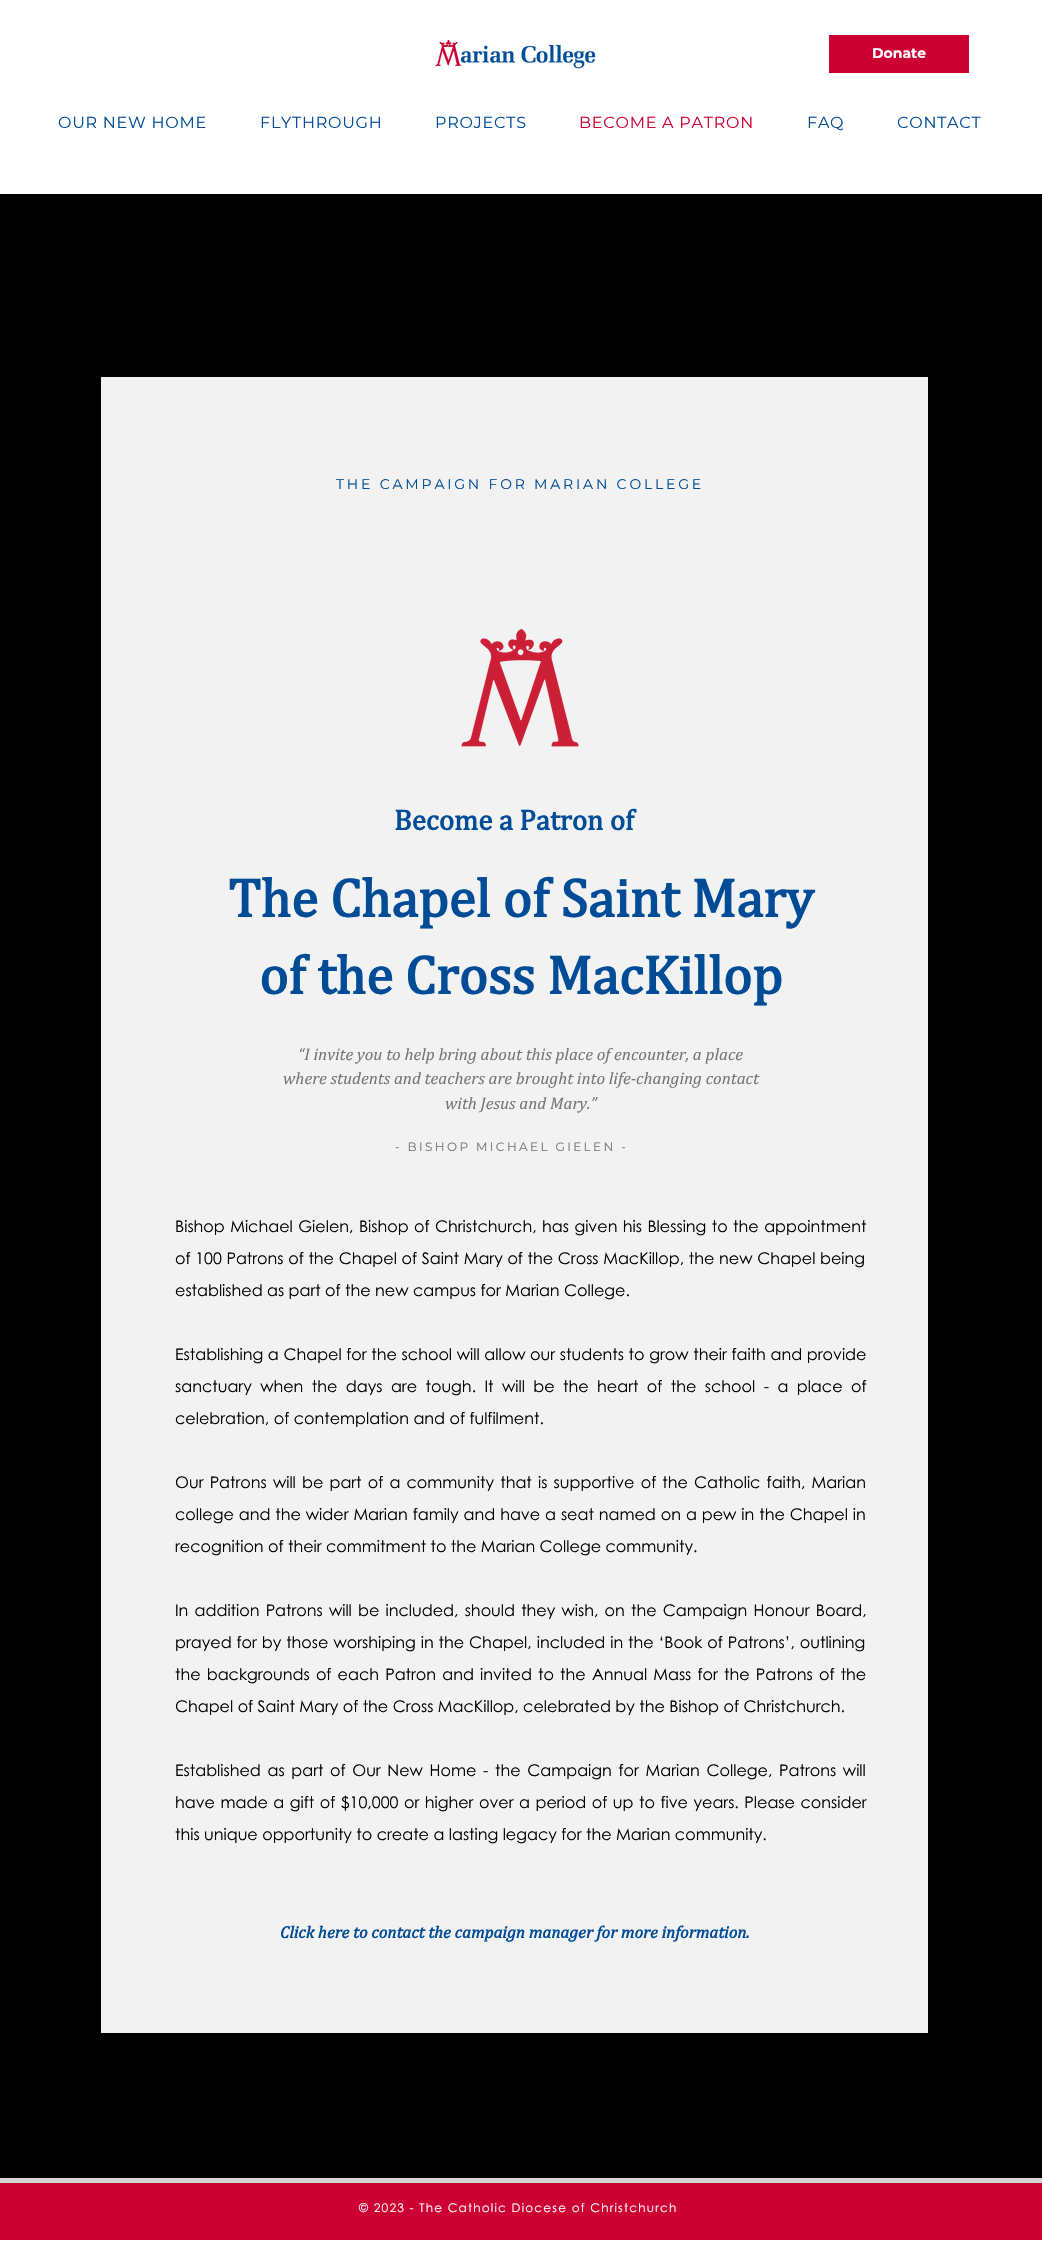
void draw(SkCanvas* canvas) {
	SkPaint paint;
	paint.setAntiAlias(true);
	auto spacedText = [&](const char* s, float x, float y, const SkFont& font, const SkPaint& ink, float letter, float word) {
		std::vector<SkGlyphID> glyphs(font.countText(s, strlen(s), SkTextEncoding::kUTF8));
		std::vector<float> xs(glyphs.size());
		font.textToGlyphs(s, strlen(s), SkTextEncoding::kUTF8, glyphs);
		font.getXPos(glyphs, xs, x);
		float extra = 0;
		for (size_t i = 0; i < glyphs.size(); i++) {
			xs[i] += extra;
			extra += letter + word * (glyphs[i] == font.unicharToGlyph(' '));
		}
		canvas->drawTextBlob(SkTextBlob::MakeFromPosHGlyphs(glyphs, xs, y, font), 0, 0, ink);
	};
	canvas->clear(0xffffffff);
	canvas->drawImageRect(SkImages::DeferredFromEncodedData(SkData::MakeFromFileName("img1.png")), SkRect::MakeXYWH(435, 39, 161, 30), SkSamplingOptions());
	paint.setColor(0xffcc0033);
	canvas->drawRect(SkRect::MakeXYWH(829, 35, 140, 38), paint);
	SkFont f1(fontMgr->matchFamilyStyle("Montserrat", SkFontStyle::Bold()), 14);
	f1.setSubpixel(true);
	paint.setColor(0xffffffff);
	canvas->drawString("Donate", 872, 58, f1, paint);
	SkFont f2(fontMgr->matchFamilyStyle("Montserrat", SkFontStyle::Normal()), 16);
	f2.setSubpixel(true);
	paint.setColor(0xff004c97);
	spacedText("OUR NEW HOME", 58, 128, f2, paint, 0.75, 0);
	spacedText("FLYTHROUGH", 260, 128, f2, paint, 0.75, 0);
	spacedText("PROJECTS", 435, 128, f2, paint, 0.75, 0);
	paint.setColor(0xffcc0033);
	spacedText("BECOME A PATRON", 579, 128, f2, paint, 0.75, 0);
	paint.setColor(0xff004c97);
	spacedText("FAQ", 807, 128, f2, paint, 0.75, 0);
	spacedText("CONTACT", 897, 128, f2, paint, 0.75, 0);
	paint.setColor(0xff000000);
	canvas->drawRect(SkRect::MakeXYWH(0, 194, 1042, 1984), paint);
	paint.setColor(0xfff2f2f2);
	canvas->drawRect(SkRect::MakeXYWH(101, 377, 827, 1656), paint);
	SkFont f3(fontMgr->matchFamilyStyle("Montserrat", SkFontStyle::Normal()), 14);
	f3.setSubpixel(true);
	paint.setColor(0xff004c97);
	spacedText("THE CAMPAIGN FOR MARIAN COLLEGE", 336, 489, f3, paint, 2.8, 0);
	canvas->drawImageRect(SkImages::DeferredFromEncodedData(SkData::MakeFromFileName("img2.png")), SkRect::MakeXYWH(461, 629, 118, 118), SkSamplingOptions());
	SkFont f4(fontMgr->matchFamilyStyle("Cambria", SkFontStyle::Bold()), 29);
	f4.setSubpixel(true);
	canvas->drawString("Become a Patron of", 394, 830, f4, paint);
	SkFont f5(fontMgr->matchFamilyStyle("Cambria", SkFontStyle::Bold()), 55);
	f5.setSubpixel(true);
	canvas->drawString("The Chapel of Saint Mary", 228, 917, f5, paint);
	canvas->drawString("of the Cross MacKillop", 259, 994, f5, paint);
	SkFont f6(fontMgr->matchFamilyStyle("Cambria", SkFontStyle::Italic()), 17);
	f6.setSubpixel(true);
	paint.setColor(0xff757575);
	canvas->drawString("“I invite you to help bring about this place of encounter, a place", 298, 1060, f6, paint);
	canvas->drawString("where students and teachers are brought into life-changing contact", 283, 1084, f6, paint);
	canvas->drawString("with Jesus and Mary.”", 445, 1109, f6, paint);
	SkFont f7(fontMgr->matchFamilyStyle("Montserrat", SkFontStyle::Normal()), 12);
	f7.setSubpixel(true);
	spacedText("- BISHOP MICHAEL GIELEN -", 395, 1151, f7, paint, 2.4, 0);
	SkFont f8(fontMgr->matchFamilyStyle("Century Gothic", SkFontStyle::Normal()), 16);
	f8.setSubpixel(true);
	paint.setColor(0xff000000);
	spacedText("Bishop Michael Gielen, Bishop of Christchurch, has given his Blessing to the appointment", 175, 1232, f8, paint, 0, 1);
	spacedText("of 100 Patrons of the Chapel of Saint Mary of the Cross MacKillop, the new Chapel being", 175, 1264, f8, paint, 0, 0.25);
	canvas->drawString("established as part of the new campus for Marian College.", 175, 1296, f8, paint);
	spacedText("Establishing a Chapel for the school will allow our students to grow their faith and provide", 175, 1360, f8, paint, 0, 0.25);
	spacedText("sanctuary when the days are tough. It will be the heart of the school - a place of", 175, 1392, f8, paint, 0, 4);
	canvas->drawString("celebration, of contemplation and of fulfilment.", 175, 1424, f8, paint);
	spacedText("Our Patrons will be part of a community that is supportive of the Catholic faith, Marian", 175, 1488, f8, paint, 0, 1.75);
	spacedText("college and the wider Marian family and have a seat named on a pew in the Chapel in", 175, 1520, f8, paint, 0, 0.5);
	canvas->drawString("recognition of their commitment to the Marian College community.", 175, 1552, f8, paint);
	spacedText("In addition Patrons will be included, should they wish, on the Campaign Honour Board,", 175, 1616, f8, paint, 0, 1.75);
	spacedText("prayed for by those worshiping in the Chapel, included in the ‘Book of Patrons’, outlining", 175, 1648, f8, paint, 0, 0.5);
	spacedText("the backgrounds of each Patron and invited to the Annual Mass for the Patrons of the", 175, 1680, f8, paint, 0, 1.75);
	canvas->drawString("Chapel of Saint Mary of the Cross MacKillop, celebrated by the Bishop of Christchurch.", 175, 1712, f8, paint);
	spacedText("Established as part of Our New Home - the Campaign for Marian College, Patrons will", 175, 1776, f8, paint, 0, 2.25);
	spacedText("have made a gift of $10,000 or higher over a period of up to five years. Please consider", 175, 1808, f8, paint, 0, 1.1);
	canvas->drawString("this unique opportunity to create a lasting legacy for the Marian community.", 175, 1840, f8, paint);
	SkFont f9(fontMgr->matchFamilyStyle("Cambria", SkFontStyle::BoldItalic()), 17);
	f9.setSubpixel(true);
	paint.setColor(0xff004c97);
	canvas->drawString("Click here to contact the campaign manager for more information.", 280, 1938, f9, paint);
	paint.setColor(0xffcc0033);
	canvas->drawRect(SkRect::MakeXYWH(0, 2183, 1042, 57), paint);
	paint.setColor(0xffd6d4d4);
	canvas->drawRect(SkRect::MakeXYWH(0, 2178, 1042, 5), paint);
	SkFont f10(fontMgr->matchFamilyStyle("Century Gothic", SkFontStyle::Normal()), 12);
	f10.setSubpixel(true);
	paint.setColor(0xffffffff);
	spacedText("© 2023 - The Catholic Diocese of Christchurch", 359, 2212, f10, paint, 1.2, 0);
}
